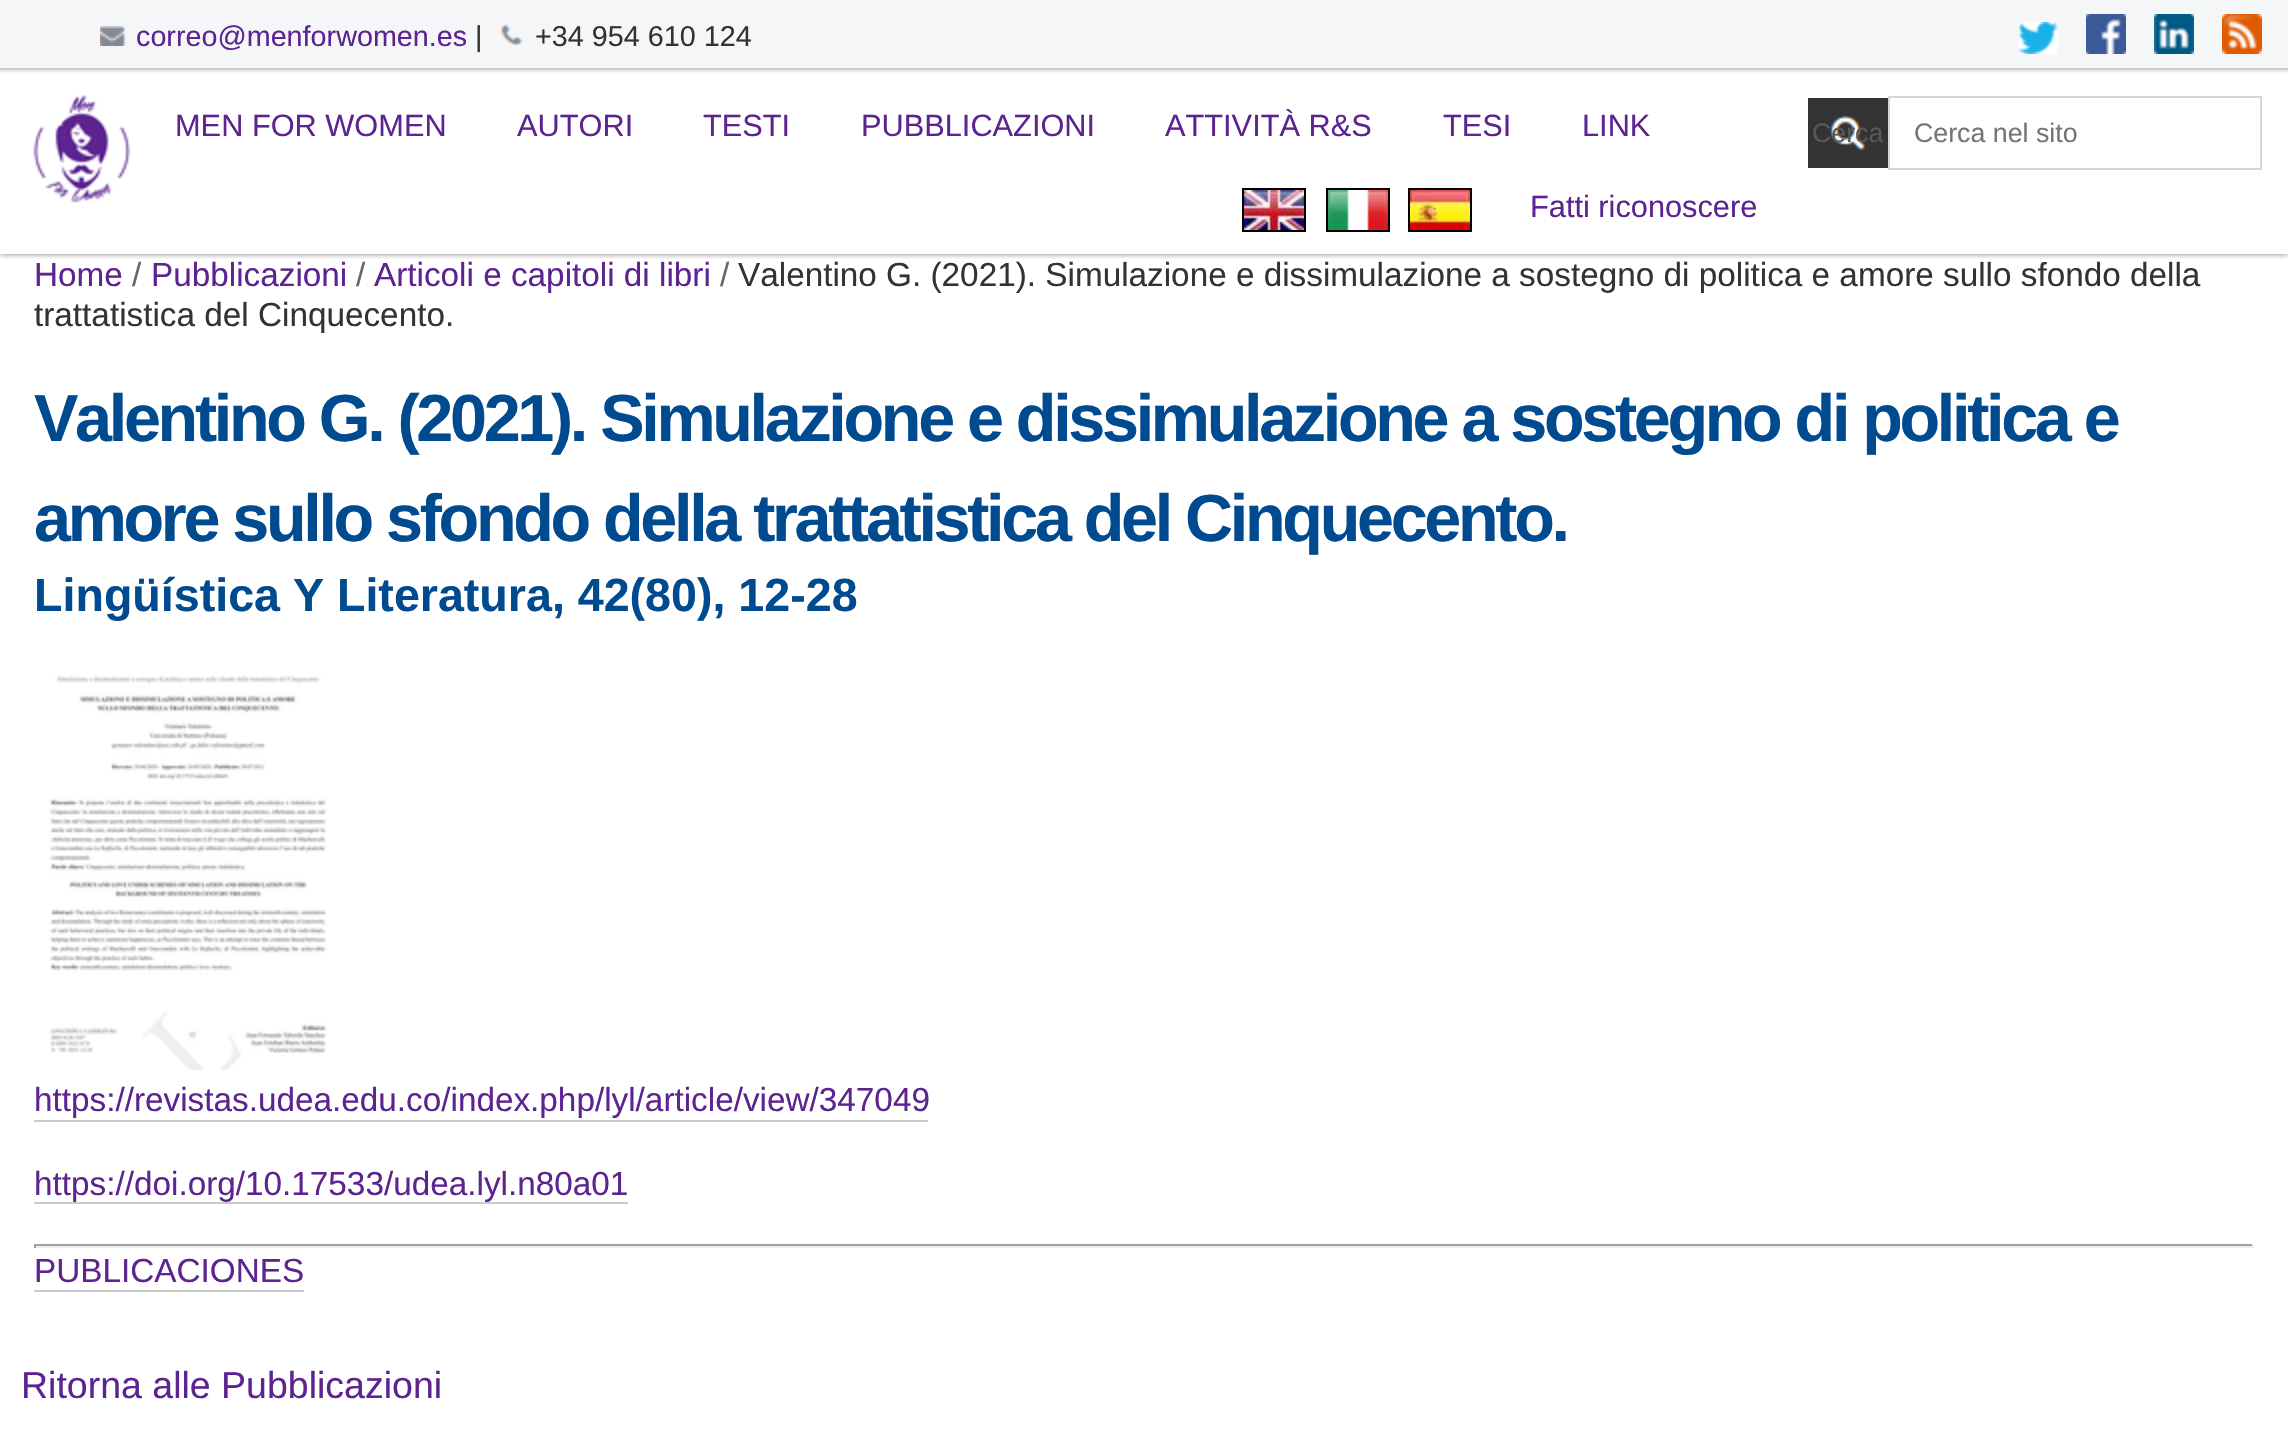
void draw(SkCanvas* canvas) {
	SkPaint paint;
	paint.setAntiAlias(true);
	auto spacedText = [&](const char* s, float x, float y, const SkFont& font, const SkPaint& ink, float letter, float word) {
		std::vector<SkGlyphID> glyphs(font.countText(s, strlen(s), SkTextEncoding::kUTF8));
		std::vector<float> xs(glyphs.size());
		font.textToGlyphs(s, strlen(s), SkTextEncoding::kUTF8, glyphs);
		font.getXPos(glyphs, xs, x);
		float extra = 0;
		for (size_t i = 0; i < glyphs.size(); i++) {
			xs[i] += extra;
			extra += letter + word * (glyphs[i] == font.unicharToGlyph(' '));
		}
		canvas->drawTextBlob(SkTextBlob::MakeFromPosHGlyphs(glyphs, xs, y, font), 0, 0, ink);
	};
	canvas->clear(0xffffffff);
	canvas->save();
	canvas->clipRect(SkRect::MakeXYWH(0, 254, 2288, 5));
	paint.setColor(0x80000000);
	paint.setMaskFilter(SkMaskFilter::MakeBlur(kNormal_SkBlurStyle, 3));
	canvas->drawRect(SkRect::MakeXYWH(0, 0, 2288, 254), paint);
	paint.setMaskFilter(nullptr);
	canvas->restore();
	paint.setMaskFilter(SkMaskFilter::MakeBlur(kNormal_SkBlurStyle, 3));
	canvas->drawRect(SkRect::MakeXYWH(-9, 0, 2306, 68), paint);
	paint.setMaskFilter(nullptr);
	paint.setColor(0xfff5f6f8);
	canvas->drawRect(SkRect::MakeXYWH(0, 0, 2288, 68), paint);
	canvas->drawImageRect(SkImages::DeferredFromEncodedData(SkData::MakeFromFileName("img1.png")), SkRect::MakeXYWH(100, 26, 26, 20), SkSamplingOptions());
	SkFont f1(fontMgr->matchFamilyStyle("Liberation Sans", SkFontStyle::Normal()), 28.75);
	f1.setSubpixel(true);
	paint.setColor(0xff5d2491);
	canvas->drawString("correo@menforwomen.es", 136, 46, f1, paint);
	paint.setColor(0xff333333);
	canvas->drawString("|", 475, 46, f1, paint);
	canvas->drawImageRect(SkImages::DeferredFromEncodedData(SkData::MakeFromFileName("img2.png")), SkRect::MakeXYWH(500, 24, 23, 22), SkSamplingOptions());
	canvas->drawString("+34 954 610 124", 535, 46, f1, paint);
	canvas->drawImageRect(SkImages::DeferredFromEncodedData(SkData::MakeFromFileName("img3.png")), SkRect::MakeXYWH(2018, 22, 40, 32), SkSamplingOptions());
	canvas->drawImageRect(SkImages::DeferredFromEncodedData(SkData::MakeFromFileName("img4.png")), SkRect::MakeXYWH(2086, 14, 40, 40), SkSamplingOptions());
	canvas->drawImageRect(SkImages::DeferredFromEncodedData(SkData::MakeFromFileName("img5.png")), SkRect::MakeXYWH(2154, 14, 40, 40), SkSamplingOptions());
	canvas->drawImageRect(SkImages::DeferredFromEncodedData(SkData::MakeFromFileName("img6.png")), SkRect::MakeXYWH(2222, 14, 40, 40), SkSamplingOptions());
	canvas->drawImageRect(SkImages::DeferredFromEncodedData(SkData::MakeFromFileName("img7.png")), SkRect::MakeXYWH(33, 95, 98, 108), SkSamplingOptions());
	SkFont f2(fontMgr->matchFamilyStyle("Liberation Sans", SkFontStyle::Normal()), 30.75);
	f2.setSubpixel(true);
	paint.setColor(0xff5d2491);
	canvas->drawString("MEN FOR WOMEN", 175, 136, f2, paint);
	canvas->drawString("AUTORI", 517, 136, f2, paint);
	canvas->drawString("TESTI", 703, 136, f2, paint);
	canvas->drawString("PUBBLICAZIONI", 861, 136, f2, paint);
	canvas->drawString("ATTIVITÀ R&S", 1165, 136, f2, paint);
	canvas->drawString("TESI", 1443, 136, f2, paint);
	canvas->drawString("LINK", 1582, 136, f2, paint);
	paint.setColor(0xff333333);
	canvas->drawRect(SkRect::MakeXYWH(1808, 98, 80, 70), paint);
	canvas->drawImageRect(SkImages::DeferredFromEncodedData(SkData::MakeFromFileName("img8.png")), SkRect::MakeXYWH(1830, 116, 36, 34), SkSamplingOptions());
	SkFont f3(fontMgr->matchFamilyStyle("Liberation Sans", SkFontStyle::Normal()), 26.75);
	f3.setSubpixel(true);
	paint.setColor(0xff595857);
	canvas->drawString("Cerca", 1812, 142, f3, paint);
	paint.setStroke(true);
	paint.setStrokeWidth(2);
	paint.setColor(0xffd6d4d4);
	canvas->drawRect(SkRect::MakeXYWH(1889, 97, 372, 72), paint);
	paint.setStroke(false);
	paint.setColor(0xff757575);
	canvas->drawString("Cerca nel sito", 1914, 142, f3, paint);
	canvas->drawImageRect(SkImages::DeferredFromEncodedData(SkData::MakeFromFileName("img9.png")), SkRect::MakeXYWH(1244, 190, 60, 40), SkSamplingOptions());
	paint.setStroke(true);
	paint.setColor(0xff000000);
	canvas->drawRect(SkRect::MakeXYWH(1243, 189, 62, 42), paint);
	canvas->drawImageRect(SkImages::DeferredFromEncodedData(SkData::MakeFromFileName("img10.png")), SkRect::MakeXYWH(1328, 190, 60, 40), SkSamplingOptions());
	canvas->drawRect(SkRect::MakeXYWH(1327, 189, 62, 42), paint);
	canvas->drawImageRect(SkImages::DeferredFromEncodedData(SkData::MakeFromFileName("img11.png")), SkRect::MakeXYWH(1410, 190, 60, 40), SkSamplingOptions());
	canvas->drawRect(SkRect::MakeXYWH(1409, 189, 62, 42), paint);
	paint.setStroke(false);
	paint.setColor(0xff5d2491);
	canvas->drawString("Fatti riconoscere", 1530, 217, f2, paint);
	SkFont f4(fontMgr->matchFamilyStyle("Liberation Sans", SkFontStyle::Normal()), 33.3);
	f4.setSubpixel(true);
	canvas->drawString("Home", 34, 286, f4, paint);
	paint.setColor(0xff666666);
	canvas->drawString("/", 132, 286, f4, paint);
	paint.setColor(0xff5d2491);
	canvas->drawString("Pubblicazioni", 151, 286, f4, paint);
	paint.setColor(0xff666666);
	canvas->drawString("/", 356, 286, f4, paint);
	paint.setColor(0xff5d2491);
	canvas->drawString("Articoli e capitoli di libri", 374, 286, f4, paint);
	paint.setColor(0xff666666);
	canvas->drawString("/", 720, 286, f4, paint);
	paint.setColor(0xff333333);
	canvas->drawString("Valentino G. (2021). Simulazione e dissimulazione a sostegno di politica e amore sullo sfondo della", 738, 286, f4, paint);
	canvas->drawString("trattatistica del Cinquecento.", 34, 326, f4, paint);
	SkFont f5(fontMgr->matchFamilyStyle("Liberation Sans", SkFontStyle::Bold()), 66.55);
	f5.setSubpixel(true);
	paint.setColor(0xff004a8f);
	spacedText("Valentino G. (2021). Simulazione e dissimulazione a sostegno di politica e", 34, 441, f5, paint, -3.33, 0);
	spacedText("amore sullo sfondo della trattatistica del Cinquecento.", 34, 541, f5, paint, -3.33, 0);
	SkFont f6(fontMgr->matchFamilyStyle("Liberation Sans", SkFontStyle::Bold()), 46.6);
	f6.setSubpixel(true);
	canvas->drawString("Lingüística Y Literatura, 42(80), 12-28", 34, 611, f6, paint);
	canvas->drawImageRect(SkImages::DeferredFromEncodedData(SkData::MakeFromFileName("img12.png")), SkRect::MakeXYWH(49, 675, 278, 395), SkSamplingOptions());
	paint.setColor(0xff5d2491);
	canvas->drawString("https://revistas.udea.edu.co/index.php/lyl/article/view/347049", 34, 1111, f4, paint);
	paint.setColor(0xffcccccc);
	canvas->drawRect(SkRect::MakeXYWH(34, 1120, 894, 2), paint);
	paint.setColor(0xff5d2491);
	canvas->drawString("https://doi.org/10.17533/udea.lyl.n80a01", 34, 1195, f4, paint);
	paint.setColor(0xffcccccc);
	canvas->drawRect(SkRect::MakeXYWH(34, 1202, 594, 2), paint);
	paint.setColor(0xff9f9f9f);
	canvas->drawRect(SkRect::MakeXYWH(34, 1244, 2220, 2), paint);
	paint.setColor(0xffeeeeee);
	canvas->drawRect(SkRect::MakeXYWH(2252, 1244, 2, 4), paint);
	canvas->drawRect(SkRect::MakeXYWH(34, 1246, 2220, 2), paint);
	paint.setColor(0xff9f9f9f);
	canvas->drawRect(SkRect::MakeXYWH(34, 1244, 2, 4), paint);
	paint.setColor(0xff5d2491);
	canvas->drawString("PUBLICACIONES", 34, 1282, f4, paint);
	paint.setColor(0xffcccccc);
	canvas->drawRect(SkRect::MakeXYWH(34, 1290, 270, 2), paint);
	SkFont f7(fontMgr->matchFamilyStyle("Liberation Sans", SkFontStyle::Normal()), 37.5);
	f7.setSubpixel(true);
	paint.setColor(0xff5d2491);
	canvas->drawString("Ritorna alle Pubblicazioni", 21, 1398, f7, paint);
}
